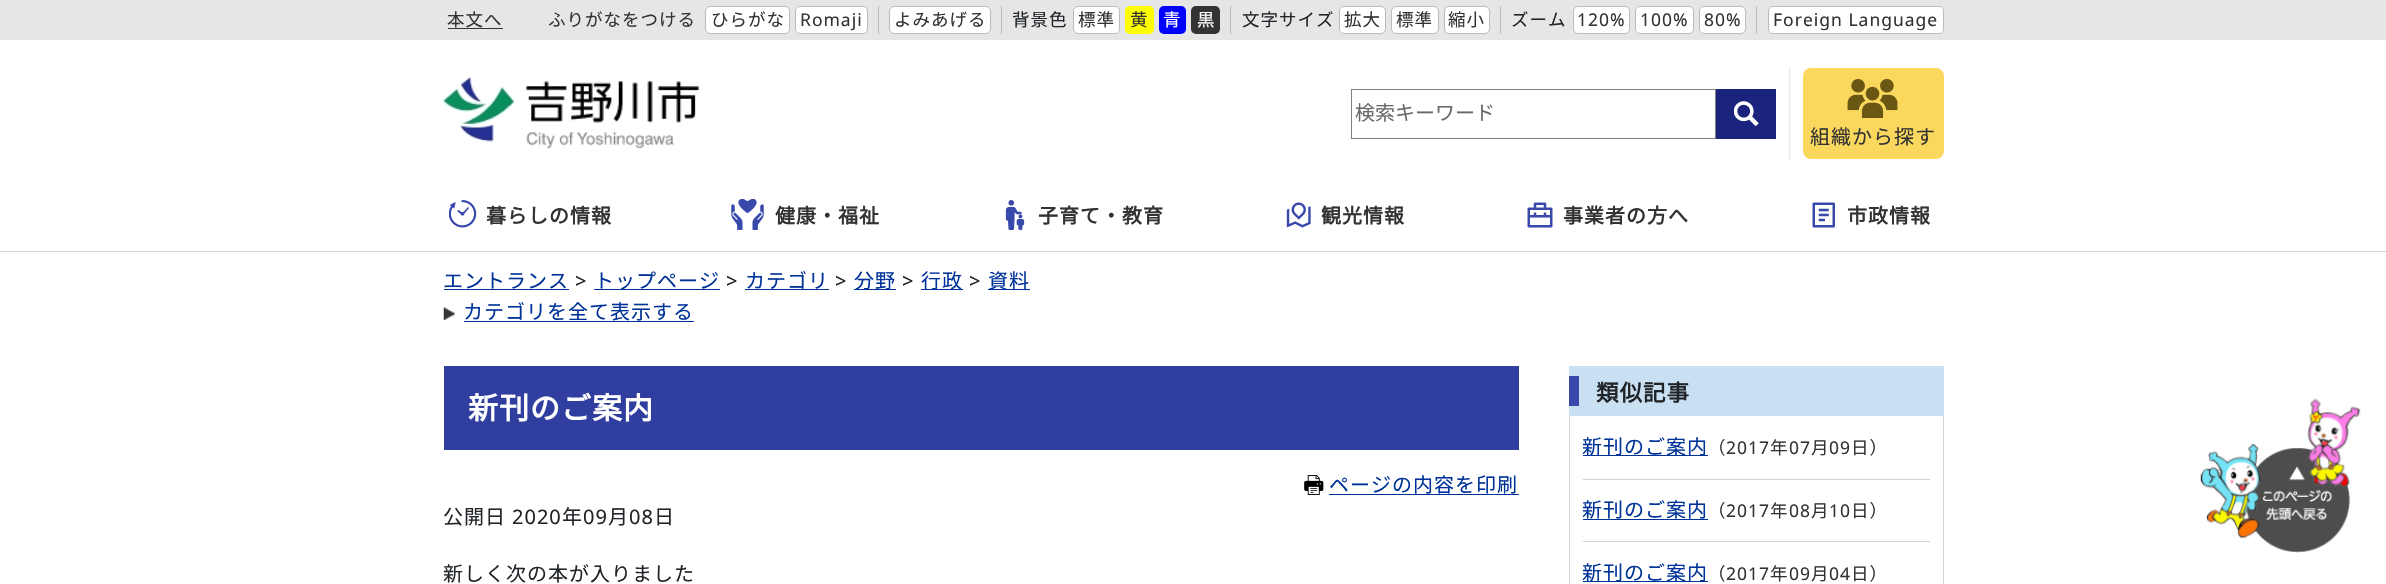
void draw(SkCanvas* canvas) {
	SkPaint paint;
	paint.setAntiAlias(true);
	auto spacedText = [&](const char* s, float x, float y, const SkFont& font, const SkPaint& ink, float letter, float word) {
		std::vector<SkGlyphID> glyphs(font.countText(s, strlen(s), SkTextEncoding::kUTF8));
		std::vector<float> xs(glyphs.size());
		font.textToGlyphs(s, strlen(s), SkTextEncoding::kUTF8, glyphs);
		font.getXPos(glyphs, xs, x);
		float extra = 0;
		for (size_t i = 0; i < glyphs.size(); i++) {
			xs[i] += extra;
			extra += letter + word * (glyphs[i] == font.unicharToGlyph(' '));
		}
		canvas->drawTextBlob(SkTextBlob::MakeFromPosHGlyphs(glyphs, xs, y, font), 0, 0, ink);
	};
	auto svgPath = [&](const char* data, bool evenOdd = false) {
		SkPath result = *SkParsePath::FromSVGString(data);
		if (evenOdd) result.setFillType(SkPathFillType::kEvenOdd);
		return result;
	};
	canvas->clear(0xffffffff);
	paint.setColor(0xffe6e6e6);
	canvas->drawRect(SkRect::MakeXYWH(0, 0, 2386, 40), paint);
	SkFont f1(fontMgr->matchFamilyStyle("Noto Sans JP", SkFontStyle(100, SkFontStyle::kNormal_Width, SkFontStyle::kUpright_Slant)), 17.5);
	f1.setSubpixel(true);
	paint.setColor(0xff333333);
	spacedText("本文へ", 447, 26, f1, paint, 1, 0);
	canvas->drawRect(SkRect::MakeXYWH(448, 28, 55, 1), paint);
	spacedText("ふりがなをつける", 548, 26, f1, paint, 1, 0);
	paint.setColor(0xffffffff);
	canvas->drawRoundRect(SkRect::MakeXYWH(705.5, 6.5, 84, 27), 4.5, 4.5, paint);
	paint.setStroke(true);
	paint.setStrokeWidth(1);
	paint.setColor(0xffbbbbbb);
	canvas->drawRoundRect(SkRect::MakeXYWH(705.5, 6.5, 84, 27), 4.5, 4.5, paint);
	paint.setStroke(false);
	paint.setColor(0xff333333);
	spacedText("ひらがな", 711, 26, f1, paint, 1, 0);
	paint.setColor(0xffffffff);
	canvas->drawRoundRect(SkRect::MakeXYWH(795.5, 6.5, 72, 27), 4.5, 4.5, paint);
	paint.setStroke(true);
	paint.setColor(0xffbbbbbb);
	canvas->drawRoundRect(SkRect::MakeXYWH(795.5, 6.5, 72, 27), 4.5, 4.5, paint);
	SkFont f2(fontMgr->matchFamilyStyle("Noto Sans", SkFontStyle::Normal()), 17.5);
	f2.setSubpixel(true);
	paint.setStroke(false);
	paint.setColor(0xff333333);
	spacedText("Romaji", 800, 26, f2, paint, 1, 0);
	paint.setColor(0xffbbbbbb);
	canvas->drawRect(SkRect::MakeXYWH(878, 6, 1, 28), paint);
	paint.setColor(0xffffffff);
	canvas->drawRoundRect(SkRect::MakeXYWH(889.5, 6.5, 101, 27), 4.5, 4.5, paint);
	paint.setStroke(true);
	paint.setColor(0xffbbbbbb);
	canvas->drawRoundRect(SkRect::MakeXYWH(889.5, 6.5, 101, 27), 4.5, 4.5, paint);
	paint.setStroke(false);
	paint.setColor(0xff333333);
	spacedText("よみあげる", 894, 26, f1, paint, 1, 0);
	paint.setColor(0xffbbbbbb);
	canvas->drawRect(SkRect::MakeXYWH(1001, 6, 1, 28), paint);
	paint.setColor(0xff212529);
	spacedText("背景色", 1012, 26, f1, paint, 1, 0);
	paint.setColor(0xffffffff);
	canvas->drawRoundRect(SkRect::MakeXYWH(1073.5, 6.5, 46, 27), 4.5, 4.5, paint);
	paint.setStroke(true);
	paint.setColor(0xffbbbbbb);
	canvas->drawRoundRect(SkRect::MakeXYWH(1073.5, 6.5, 46, 27), 4.5, 4.5, paint);
	paint.setStroke(false);
	paint.setColor(0xff333333);
	spacedText("標準", 1078, 26, f1, paint, 1, 0);
	paint.setColor(0xffffff00);
	canvas->drawRoundRect(SkRect::MakeXYWH(1125, 6, 29, 28), 5, 5, paint);
	paint.setColor(0xff333333);
	spacedText("黄", 1130, 26, f1, paint, 1, 0);
	paint.setColor(0xff0000ff);
	canvas->drawRoundRect(SkRect::MakeXYWH(1159, 6, 27, 28), 5, 5, paint);
	paint.setColor(0xffffffff);
	spacedText("青", 1163, 26, f1, paint, 1, 0);
	paint.setColor(0xff333333);
	canvas->drawRoundRect(SkRect::MakeXYWH(1191, 6, 29, 28), 5, 5, paint);
	paint.setColor(0xffffffff);
	spacedText("黒", 1197, 26, f1, paint, 1, 0);
	paint.setColor(0xffbbbbbb);
	canvas->drawRect(SkRect::MakeXYWH(1230, 6, 1, 28), paint);
	paint.setColor(0xff212529);
	spacedText("文字サイズ", 1242, 26, f1, paint, 1, 0);
	paint.setColor(0xffffffff);
	canvas->drawRoundRect(SkRect::MakeXYWH(1339.5, 6.5, 46, 27), 4.5, 4.5, paint);
	paint.setStroke(true);
	paint.setColor(0xffbbbbbb);
	canvas->drawRoundRect(SkRect::MakeXYWH(1339.5, 6.5, 46, 27), 4.5, 4.5, paint);
	paint.setStroke(false);
	paint.setColor(0xff333333);
	spacedText("拡大", 1344, 26, f1, paint, 1, 0);
	paint.setColor(0xffffffff);
	canvas->drawRoundRect(SkRect::MakeXYWH(1391.5, 6.5, 47, 27), 4.5, 4.5, paint);
	paint.setStroke(true);
	paint.setColor(0xffbbbbbb);
	canvas->drawRoundRect(SkRect::MakeXYWH(1391.5, 6.5, 47, 27), 4.5, 4.5, paint);
	paint.setStroke(false);
	paint.setColor(0xff333333);
	spacedText("標準", 1396, 26, f1, paint, 1, 0);
	paint.setColor(0xffffffff);
	canvas->drawRoundRect(SkRect::MakeXYWH(1444.5, 6.5, 45, 27), 4.5, 4.5, paint);
	paint.setStroke(true);
	paint.setColor(0xffbbbbbb);
	canvas->drawRoundRect(SkRect::MakeXYWH(1444.5, 6.5, 45, 27), 4.5, 4.5, paint);
	paint.setStroke(false);
	paint.setColor(0xff333333);
	spacedText("縮小", 1448, 26, f1, paint, 1, 0);
	paint.setColor(0xffbbbbbb);
	canvas->drawRect(SkRect::MakeXYWH(1500, 6, 1, 28), paint);
	paint.setColor(0xff212529);
	spacedText("ズーム", 1511, 26, f1, paint, 1, 0);
	paint.setColor(0xffffffff);
	canvas->drawRoundRect(SkRect::MakeXYWH(1573.5, 6.5, 56, 27), 4.5, 4.5, paint);
	paint.setStroke(true);
	paint.setColor(0xffbbbbbb);
	canvas->drawRoundRect(SkRect::MakeXYWH(1573.5, 6.5, 56, 27), 4.5, 4.5, paint);
	paint.setStroke(false);
	paint.setColor(0xff333333);
	spacedText("120%", 1577, 26, f2, paint, 1, 0);
	paint.setColor(0xffffffff);
	canvas->drawRoundRect(SkRect::MakeXYWH(1635.5, 6.5, 58, 27), 4.5, 4.5, paint);
	paint.setStroke(true);
	paint.setColor(0xffbbbbbb);
	canvas->drawRoundRect(SkRect::MakeXYWH(1635.5, 6.5, 58, 27), 4.5, 4.5, paint);
	paint.setStroke(false);
	paint.setColor(0xff333333);
	spacedText("100%", 1640, 26, f2, paint, 1, 0);
	paint.setColor(0xffffffff);
	canvas->drawRoundRect(SkRect::MakeXYWH(1699.5, 6.5, 46, 27), 4.5, 4.5, paint);
	paint.setStroke(true);
	paint.setColor(0xffbbbbbb);
	canvas->drawRoundRect(SkRect::MakeXYWH(1699.5, 6.5, 46, 27), 4.5, 4.5, paint);
	paint.setStroke(false);
	paint.setColor(0xff333333);
	spacedText("80%", 1704, 26, f2, paint, 1, 0);
	paint.setColor(0xffbbbbbb);
	canvas->drawRect(SkRect::MakeXYWH(1756, 6, 1, 28), paint);
	paint.setColor(0xffffffff);
	canvas->drawRoundRect(SkRect::MakeXYWH(1768.5, 6.5, 175, 27), 4.5, 4.5, paint);
	paint.setStroke(true);
	paint.setColor(0xffbbbbbb);
	canvas->drawRoundRect(SkRect::MakeXYWH(1768.5, 6.5, 175, 27), 4.5, 4.5, paint);
	paint.setStroke(false);
	paint.setColor(0xff333333);
	spacedText("Foreign Language", 1773, 26, f2, paint, 1, 0);
	canvas->drawImageRect(SkImages::DeferredFromEncodedData(SkData::MakeFromFileName("img1.png")), SkRect::MakeXYWH(443, 77, 256, 72), SkSamplingOptions());
	paint.setStroke(true);
	paint.setColor(0xff808080);
	canvas->drawRect(SkRect::MakeXYWH(1351.5, 89.5, 364, 49), paint);
	SkFont f3(fontMgr->matchFamilyStyle("Noto Sans JP", SkFontStyle(100, SkFontStyle::kNormal_Width, SkFontStyle::kUpright_Slant)), 20);
	f3.setSubpixel(true);
	paint.setStroke(false);
	paint.setColor(0xff696969);
	canvas->drawString("検索キーワード", 1355, 120, f3, paint);
	paint.setColor(0xff1a237e);
	canvas->drawRect(SkRect::MakeXYWH(1716, 89, 60, 50), paint);
	canvas->drawImageRect(SkImages::DeferredFromEncodedData(SkData::MakeFromFileName("img2.png")), SkRect::MakeXYWH(1734, 101, 25, 25), SkSamplingOptions());
	paint.setStroke(true);
	paint.setStrokeWidth(1.2);
	paint.setColor(0xffd3d3d3);
	paint.setPathEffect(SkDashPathEffect::Make({{1.25f, 1.25f}}, 0));
	canvas->drawPath(svgPath("M1789.5 67.5V159"), paint);
	paint.setPathEffect(nullptr);
	paint.setStroke(false);
	paint.setColor(0xfffad75d);
	canvas->drawRoundRect(SkRect::MakeXYWH(1803, 68, 141, 91), 8, 8, paint);
	canvas->drawImageRect(SkImages::DeferredFromEncodedData(SkData::MakeFromFileName("img3.png")), SkRect::MakeXYWH(1847, 79, 51, 39), SkSamplingOptions());
	paint.setColor(0xff333333);
	spacedText("組織から探す", 1810, 144, f3, paint, 1, 0);
	paint.setColor(0xffd3d3d3);
	canvas->drawRect(SkRect::MakeXYWH(0, 251, 2386, 1), paint);
	canvas->drawImageRect(SkImages::DeferredFromEncodedData(SkData::MakeFromFileName("img4.png")), SkRect::MakeXYWH(449, 200, 28, 28), SkSamplingOptions());
	SkFont f4(fontMgr->matchFamilyStyle("Noto Sans JP", SkFontStyle::Bold()), 20);
	f4.setSubpixel(true);
	paint.setColor(0xff333333);
	spacedText("暮らしの情報", 486, 223, f4, paint, 1, 0);
	canvas->drawImageRect(SkImages::DeferredFromEncodedData(SkData::MakeFromFileName("img5.png")), SkRect::MakeXYWH(731, 199, 33, 31), SkSamplingOptions());
	spacedText("健康・福祉", 775, 223, f4, paint, 1, 0);
	canvas->drawImageRect(SkImages::DeferredFromEncodedData(SkData::MakeFromFileName("img6.png")), SkRect::MakeXYWH(1005, 200, 20, 30), SkSamplingOptions());
	spacedText("子育て・教育", 1038, 223, f4, paint, 1, 0);
	canvas->drawImageRect(SkImages::DeferredFromEncodedData(SkData::MakeFromFileName("img7.png")), SkRect::MakeXYWH(1286, 202, 25, 26), SkSamplingOptions());
	spacedText("観光情報", 1321, 223, f4, paint, 1, 0);
	canvas->drawImageRect(SkImages::DeferredFromEncodedData(SkData::MakeFromFileName("img8.png")), SkRect::MakeXYWH(1527, 202, 26, 26), SkSamplingOptions());
	spacedText("事業者の方へ", 1563, 223, f4, paint, 1, 0);
	canvas->drawImageRect(SkImages::DeferredFromEncodedData(SkData::MakeFromFileName("img9.png")), SkRect::MakeXYWH(1812, 202, 23, 26), SkSamplingOptions());
	spacedText("市政情報", 1847, 223, f4, paint, 1, 0);
	paint.setColor(0xff003399);
	spacedText("エントランス", 443, 288, f3, paint, 1, 0);
	canvas->drawRect(SkRect::MakeXYWH(444, 289, 125, 1), paint);
	SkFont f5(fontMgr->matchFamilyStyle("Noto Sans", SkFontStyle::Normal()), 20);
	f5.setSubpixel(true);
	paint.setColor(0xff212529);
	spacedText(">", 575, 288, f5, paint, 1, 0);
	paint.setColor(0xff003399);
	canvas->drawRect(SkRect::MakeXYWH(594, 289, 126, 1), paint);
	spacedText("トップページ", 594, 288, f3, paint, 1, 0);
	paint.setColor(0xff212529);
	spacedText(">", 726, 288, f5, paint, 1, 0);
	paint.setColor(0xff003399);
	spacedText("カテゴリ", 745, 288, f3, paint, 1, 0);
	canvas->drawRect(SkRect::MakeXYWH(745, 289, 84, 1), paint);
	paint.setColor(0xff212529);
	spacedText(">", 835, 288, f5, paint, 1, 0);
	paint.setColor(0xff003399);
	canvas->drawRect(SkRect::MakeXYWH(854, 289, 42, 1), paint);
	spacedText("分野", 854, 288, f3, paint, 1, 0);
	paint.setColor(0xff212529);
	spacedText(">", 902, 288, f5, paint, 1, 0);
	paint.setColor(0xff003399);
	canvas->drawRect(SkRect::MakeXYWH(921, 289, 42, 1), paint);
	spacedText("行政", 921, 288, f3, paint, 1, 0);
	paint.setColor(0xff212529);
	spacedText(">", 969, 288, f5, paint, 1, 0);
	paint.setColor(0xff003399);
	canvas->drawRect(SkRect::MakeXYWH(988, 289, 42, 1), paint);
	spacedText("資料", 988, 288, f3, paint, 1, 0);
	canvas->drawImageRect(SkImages::DeferredFromEncodedData(SkData::MakeFromFileName("img10.png")), SkRect::MakeXYWH(443, 307, 12, 13), SkSamplingOptions());
	spacedText("カテゴリを全て表示する", 463, 319, f3, paint, 1, 0);
	canvas->drawRect(SkRect::MakeXYWH(464, 321, 230, 1), paint);
	paint.setColor(0xff303f9f);
	canvas->drawRect(SkRect::MakeXYWH(444, 366, 1075, 84), paint);
	SkFont f6(fontMgr->matchFamilyStyle("Noto Sans JP", SkFontStyle::Bold()), 30);
	f6.setSubpixel(true);
	paint.setColor(0xffffffff);
	spacedText("新刊のご案内", 468, 419, f6, paint, 1, 0);
	canvas->drawImageRect(SkImages::DeferredFromEncodedData(SkData::MakeFromFileName("img11.png")), SkRect::MakeXYWH(1304, 475, 20, 20), SkSamplingOptions());
	paint.setColor(0xff003399);
	spacedText("ページの内容を印刷", 1329, 492, f3, paint, 1, 0);
	canvas->drawRect(SkRect::MakeXYWH(1329, 494, 190, 1), paint);
	paint.setColor(0xff212529);
	spacedText("公開日", 443, 524, f3, paint, 1, 0);
	spacedText("2020", 512, 524, f5, paint, 1, 0);
	spacedText("年", 562, 524, f3, paint, 1, 0);
	spacedText("09", 583, 524, f5, paint, 1, 0);
	spacedText("月", 608, 524, f3, paint, 1, 0);
	spacedText("08", 629, 524, f5, paint, 1, 0);
	spacedText("日", 654, 524, f3, paint, 1, 0);
	spacedText("新しく次の本が入りました", 443, 581, f3, paint, 1, 0);
	paint.setColor(0xffc9e0f2);
	canvas->drawRect(SkRect::MakeXYWH(1569, 366, 375, 50), paint);
	paint.setColor(0xff3949ab);
	canvas->drawRect(SkRect::MakeXYWH(1569, 376, 10, 30), paint);
	SkFont f7(fontMgr->matchFamilyStyle("Noto Sans JP", SkFontStyle::Bold()), 22.5);
	f7.setSubpixel(true);
	paint.setColor(0xff212529);
	spacedText("類似記事", 1596, 401, f7, paint, 1, 0);
	paint.setColor(0xffd3d3d3);
	canvas->drawRect(SkRect::MakeXYWH(1943, 416, 1, 168), paint);
	canvas->drawRect(SkRect::MakeXYWH(1569, 416, 1, 168), paint);
	canvas->drawRect(SkRect::MakeXYWH(1583, 479, 347, 1), paint);
	paint.setColor(0xff003399);
	canvas->drawRect(SkRect::MakeXYWH(1583, 455, 125, 1), paint);
	spacedText("新刊のご案内", 1582, 454, f3, paint, 1, 0);
	paint.setColor(0xff333333);
	spacedText("（", 1708, 454, f1, paint, 1, 0);
	spacedText("2017", 1726, 454, f2, paint, 1, 0);
	spacedText("年", 1770, 454, f1, paint, 1, 0);
	spacedText("07", 1789, 454, f2, paint, 1, 0);
	spacedText("月", 1811, 454, f1, paint, 1, 0);
	spacedText("09", 1829, 454, f2, paint, 1, 0);
	spacedText("日）", 1851, 454, f1, paint, 1, 0);
	paint.setColor(0xffd3d3d3);
	canvas->drawRect(SkRect::MakeXYWH(1583, 541, 347, 1), paint);
	paint.setColor(0xff003399);
	spacedText("新刊のご案内", 1582, 517, f3, paint, 1, 0);
	canvas->drawRect(SkRect::MakeXYWH(1583, 519, 125, 1), paint);
	paint.setColor(0xff333333);
	spacedText("（", 1708, 517, f1, paint, 1, 0);
	spacedText("2017", 1726, 517, f2, paint, 1, 0);
	spacedText("年", 1770, 517, f1, paint, 1, 0);
	spacedText("08", 1789, 517, f2, paint, 1, 0);
	spacedText("月", 1811, 517, f1, paint, 1, 0);
	spacedText("10", 1829, 517, f2, paint, 1, 0);
	spacedText("日）", 1851, 517, f1, paint, 1, 0);
	paint.setColor(0xff003399);
	canvas->drawRect(SkRect::MakeXYWH(1583, 581, 125, 1), paint);
	spacedText("新刊のご案内", 1582, 580, f3, paint, 1, 0);
	paint.setColor(0xff333333);
	spacedText("（", 1708, 580, f1, paint, 1, 0);
	spacedText("2017", 1726, 580, f2, paint, 1, 0);
	spacedText("年", 1770, 580, f1, paint, 1, 0);
	spacedText("09", 1789, 580, f2, paint, 1, 0);
	spacedText("月", 1811, 580, f1, paint, 1, 0);
	spacedText("04", 1829, 580, f2, paint, 1, 0);
	spacedText("日）", 1851, 580, f1, paint, 1, 0);
	canvas->drawImageRect(SkImages::DeferredFromEncodedData(SkData::MakeFromFileName("img12.png")), SkRect::MakeXYWH(2200, 398, 161, 155), SkSamplingOptions());
}
